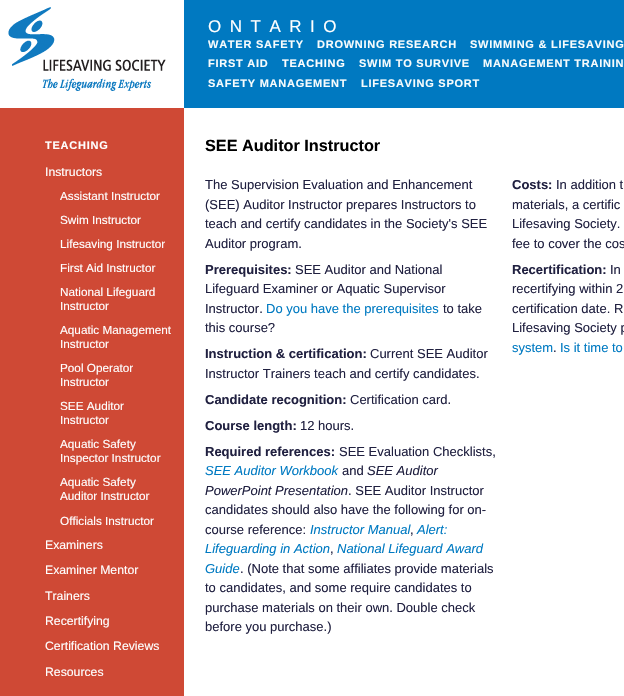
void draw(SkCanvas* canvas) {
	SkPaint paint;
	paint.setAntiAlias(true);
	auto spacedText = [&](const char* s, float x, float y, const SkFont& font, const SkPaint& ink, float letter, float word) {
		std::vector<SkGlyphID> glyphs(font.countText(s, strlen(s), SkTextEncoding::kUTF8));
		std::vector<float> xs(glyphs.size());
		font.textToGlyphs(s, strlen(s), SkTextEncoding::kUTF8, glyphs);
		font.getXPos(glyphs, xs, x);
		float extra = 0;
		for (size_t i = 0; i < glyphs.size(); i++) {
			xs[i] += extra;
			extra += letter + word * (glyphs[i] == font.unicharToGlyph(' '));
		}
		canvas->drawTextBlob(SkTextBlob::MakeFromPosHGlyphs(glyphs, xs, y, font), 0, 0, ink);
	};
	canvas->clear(0xffcf4935);
	paint.setColor(0xff0079c1);
	canvas->drawRect(SkRect::MakeXYWH(184, 0, 440, 108), paint);
	paint.setColor(0xffffffff);
	canvas->drawRect(SkRect::MakeXYWH(0, 0, 184, 108), paint);
	canvas->drawImageRect(SkImages::DeferredFromEncodedData(SkData::MakeFromFileName("img1.png")), SkRect::MakeXYWH(8, 7, 158, 84), SkSamplingOptions());
	SkFont f1(fontMgr->matchFamilyStyle("Liberation Sans", SkFontStyle::Normal()), 17);
	f1.setSubpixel(true);
	spacedText("ONTARIO", 208, 32, f1, paint, 8.5, 0);
	SkFont f2(fontMgr->matchFamilyStyle("Liberation Sans", SkFontStyle::Bold()), 11);
	f2.setSubpixel(true);
	paint.setColor(0xfff7fcfd);
	spacedText("WATER SAFETY", 208, 48, f2, paint, 0.75, 0);
	spacedText("DROWNING RESEARCH", 317, 48, f2, paint, 0.75, 0);
	spacedText("SWIMMING & LIFESAVING", 470, 48, f2, paint, 0.75, 0);
	spacedText("FIRST AID", 208, 67, f2, paint, 0.75, 0);
	paint.setColor(0xffffffff);
	spacedText("TEACHING", 282, 67, f2, paint, 0.75, 0);
	paint.setColor(0xfff7fcfd);
	spacedText("SWIM TO SURVIVE", 359, 67, f2, paint, 0.75, 0);
	spacedText("MANAGEMENT TRAININ", 483, 67, f2, paint, 0.75, 0);
	spacedText("SAFETY MANAGEMENT", 208, 87, f2, paint, 0.75, 0);
	spacedText("LIFESAVING SPORT", 361, 87, f2, paint, 0.75, 0);
	paint.setColor(0xffffffff);
	canvas->drawRect(SkRect::MakeXYWH(184, 108, 440, 588), paint);
	spacedText("TEACHING", 45, 149, f2, paint, 0.75, 0);
	SkFont f3(fontMgr->matchFamilyStyle("Liberation Sans", SkFontStyle::Normal()), 12.25);
	f3.setSubpixel(true);
	canvas->drawString("Instructors", 45, 176, f3, paint);
	SkFont f4(fontMgr->matchFamilyStyle("Liberation Sans", SkFontStyle::Normal()), 11.75);
	f4.setSubpixel(true);
	canvas->drawString("Assistant Instructor", 60, 200, f4, paint);
	canvas->drawString("Swim Instructor", 60, 224, f4, paint);
	canvas->drawString("Lifesaving Instructor", 60, 248, f4, paint);
	canvas->drawString("First Aid Instructor", 60, 272, f4, paint);
	canvas->drawString("National Lifeguard", 60, 296, f4, paint);
	canvas->drawString("Instructor", 60, 310, f4, paint);
	canvas->drawString("Aquatic Management", 60, 334, f4, paint);
	canvas->drawString("Instructor", 60, 348, f4, paint);
	canvas->drawString("Pool Operator", 60, 372, f4, paint);
	canvas->drawString("Instructor", 60, 386, f4, paint);
	canvas->drawString("SEE Auditor", 60, 410, f4, paint);
	canvas->drawString("Instructor", 60, 424, f4, paint);
	canvas->drawString("Aquatic Safety", 60, 448, f4, paint);
	canvas->drawString("Inspector Instructor", 60, 462, f4, paint);
	canvas->drawString("Aquatic Safety", 60, 486, f4, paint);
	canvas->drawString("Auditor Instructor", 60, 500, f4, paint);
	canvas->drawString("Officials Instructor", 60, 525, f4, paint);
	canvas->drawString("Examiners", 45, 549, f3, paint);
	canvas->drawString("Examiner Mentor", 45, 574, f3, paint);
	canvas->drawString("Trainers", 45, 600, f3, paint);
	canvas->drawString("Recertifying", 45, 625, f3, paint);
	canvas->drawString("Certification Reviews", 45, 650, f3, paint);
	canvas->drawString("Resources", 45, 676, f3, paint);
	SkFont f5(fontMgr->matchFamilyStyle("Liberation Sans", SkFontStyle::Bold()), 16.25);
	f5.setSubpixel(true);
	paint.setColor(0xff000000);
	canvas->drawString("SEE Auditor Instructor", 205, 151, f5, paint);
	SkFont f6(fontMgr->matchFamilyStyle("Liberation Sans", SkFontStyle::Normal()), 13);
	f6.setSubpixel(true);
	paint.setColor(0xff202040);
	canvas->drawString("The Supervision Evaluation and Enhancement", 205, 189, f6, paint);
	canvas->drawString("(SEE) Auditor Instructor prepares Instructors to", 205, 209, f6, paint);
	canvas->drawString("teach and certify candidates in the Society's SEE", 205, 228, f6, paint);
	canvas->drawString("Auditor program.", 205, 248, f6, paint);
	SkFont f7(fontMgr->matchFamilyStyle("Liberation Sans", SkFontStyle::Bold()), 13);
	f7.setSubpixel(true);
	canvas->drawString("Prerequisites:", 205, 274, f7, paint);
	canvas->drawString("SEE Auditor and National", 295, 274, f6, paint);
	canvas->drawString("Lifeguard Examiner or Aquatic Supervisor", 205, 293, f6, paint);
	canvas->drawString("Instructor.", 205, 313, f6, paint);
	paint.setColor(0xff007ac2);
	canvas->drawString("Do you have the prerequisites", 266, 313, f6, paint);
	paint.setColor(0xff202040);
	canvas->drawString("to take", 443, 313, f6, paint);
	canvas->drawString("this course?", 205, 332, f6, paint);
	canvas->drawString("Instruction & certification:", 205, 358, f7, paint);
	canvas->drawString("Current SEE Auditor", 370, 358, f6, paint);
	canvas->drawString("Instructor Trainers teach and certify candidates.", 205, 378, f6, paint);
	canvas->drawString("Candidate recognition:", 205, 404, f7, paint);
	canvas->drawString("Certification card.", 350, 404, f6, paint);
	canvas->drawString("Course length:", 205, 430, f7, paint);
	canvas->drawString("12 hours.", 300, 430, f6, paint);
	canvas->drawString("Required references:", 205, 456, f7, paint);
	canvas->drawString("SEE Evaluation Checklists,", 339, 456, f6, paint);
	SkFont f8(fontMgr->matchFamilyStyle("Liberation Sans", SkFontStyle::Italic()), 13);
	f8.setSubpixel(true);
	paint.setColor(0xff007ac2);
	canvas->drawString("SEE Auditor Workbook", 205, 475, f8, paint);
	paint.setColor(0xff202040);
	canvas->drawString("and", 342, 475, f6, paint);
	canvas->drawString("SEE Auditor", 367, 475, f8, paint);
	canvas->drawString("PowerPoint Presentation", 205, 495, f8, paint);
	canvas->drawString(". SEE Auditor Instructor", 348, 495, f6, paint);
	canvas->drawString("candidates should also have the following for on-", 205, 514, f6, paint);
	canvas->drawString("course reference:", 205, 534, f6, paint);
	paint.setColor(0xff007ac2);
	canvas->drawString("Instructor Manual", 310, 534, f8, paint);
	paint.setColor(0xff202040);
	canvas->drawString(",", 410, 534, f6, paint);
	paint.setColor(0xff007ac2);
	canvas->drawString("Alert:", 417, 534, f8, paint);
	canvas->drawString("Lifeguarding in Action", 205, 553, f8, paint);
	paint.setColor(0xff202040);
	canvas->drawString(",", 330, 553, f6, paint);
	paint.setColor(0xff007ac2);
	canvas->drawString("National Lifeguard Award", 337, 553, f8, paint);
	canvas->drawString("Guide", 205, 573, f8, paint);
	paint.setColor(0xff202040);
	canvas->drawString(". (Note that some affiliates provide materials", 240, 573, f6, paint);
	canvas->drawString("to candidates, and some require candidates to", 205, 592, f6, paint);
	canvas->drawString("purchase materials on their own. Double check", 205, 612, f6, paint);
	canvas->drawString("before you purchase.)", 205, 631, f6, paint);
	canvas->drawString("Costs:", 512, 189, f7, paint);
	canvas->drawString("In addition t", 556, 189, f6, paint);
	canvas->drawString("materials, a certific", 512, 209, f6, paint);
	canvas->drawString("Lifesaving Society.", 512, 228, f6, paint);
	canvas->drawString("fee to cover the cos", 512, 248, f6, paint);
	canvas->drawString("Recertification:", 512, 274, f7, paint);
	canvas->drawString("In", 610, 274, f6, paint);
	canvas->drawString("recertifying within 2", 512, 293, f6, paint);
	canvas->drawString("certification date. R", 512, 313, f6, paint);
	canvas->drawString("Lifesaving Society p", 512, 332, f6, paint);
	paint.setColor(0xff007ac2);
	canvas->drawString("system", 512, 352, f6, paint);
	paint.setColor(0xff202040);
	canvas->drawString(".", 553, 352, f6, paint);
	paint.setColor(0xff007ac2);
	canvas->drawString("Is it time to", 560, 352, f6, paint);
}
